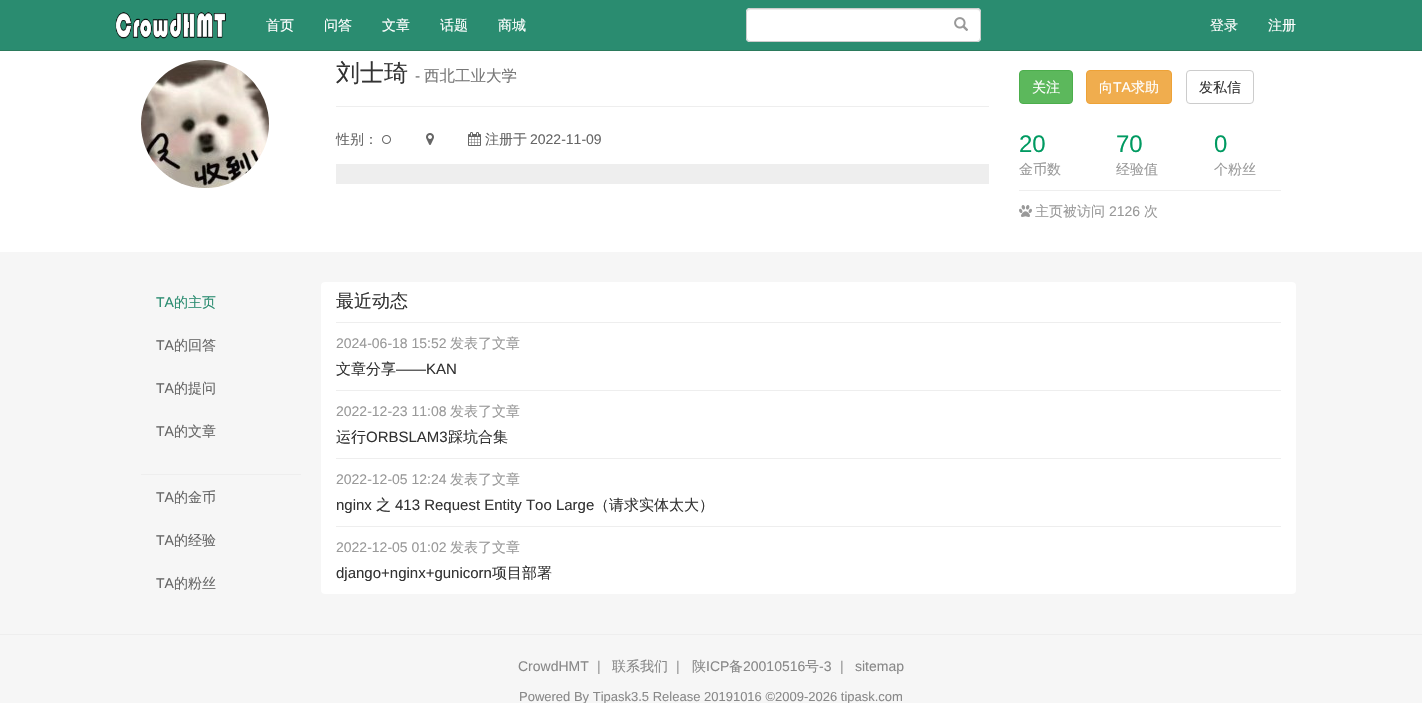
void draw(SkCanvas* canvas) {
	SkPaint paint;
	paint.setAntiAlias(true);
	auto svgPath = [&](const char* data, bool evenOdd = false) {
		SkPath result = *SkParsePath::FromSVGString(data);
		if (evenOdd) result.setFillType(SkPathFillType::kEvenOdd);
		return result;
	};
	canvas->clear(0xfff6f6f6);
	paint.setColor(0xff2a8c70);
	canvas->drawRect(SkRect::MakeXYWH(0, 0, 1422, 50), paint);
	paint.setColor(0xff2b7a5c);
	canvas->drawRect(SkRect::MakeXYWH(0, 50, 1422, 1), paint);
	canvas->drawImageRect(SkImages::DeferredFromEncodedData(SkData::MakeFromFileName("img1.png")), SkRect::MakeXYWH(115, 12, 111, 27), SkSamplingOptions());
	SkFont f1(fontMgr->matchFamilyStyle("WenQuanYi Zen Hei", SkFontStyle(500, SkFontStyle::kNormal_Width, SkFontStyle::kUpright_Slant)), 14);
	f1.setSubpixel(true);
	paint.setColor(0xffffffff);
	canvas->drawString("首页", 266, 30, f1, paint);
	canvas->drawString("问答", 324, 30, f1, paint);
	canvas->drawString("文章", 382, 30, f1, paint);
	canvas->drawString("话题", 440, 30, f1, paint);
	canvas->drawString("商城", 498, 30, f1, paint);
	canvas->drawRoundRect(SkRect::MakeXYWH(746, 8, 235, 34), 4, 4, paint);
	paint.setColor(0xffececec);
	canvas->drawPath(svgPath("M750 10H977C979 10 980 11 980 13C980 11 979 9 977 9H750C748 9 747 11 747 13C747 11 748 10 750 10Z"), paint);
	paint.setStroke(true);
	paint.setStrokeWidth(1);
	paint.setColor(0xffcccccc);
	canvas->drawRoundRect(SkRect::MakeXYWH(746.5, 8.5, 234, 33), 3.5, 3.5, paint);
	canvas->drawImageRect(SkImages::DeferredFromEncodedData(SkData::MakeFromFileName("img2.png")), SkRect::MakeXYWH(954, 17, 14, 14), SkSamplingOptions());
	paint.setStroke(false);
	paint.setColor(0xffffffff);
	canvas->drawString("登录", 1210, 30, f1, paint);
	canvas->drawString("注册", 1268, 30, f1, paint);
	canvas->drawRect(SkRect::MakeXYWH(0, 51, 1422, 201), paint);
	canvas->drawImageRect(SkImages::DeferredFromEncodedData(SkData::MakeFromFileName("img3.png")), SkRect::MakeXYWH(141, 60, 128, 128), SkSamplingOptions());
	SkFont f2(fontMgr->matchFamilyStyle("WenQuanYi Zen Hei", SkFontStyle(500, SkFontStyle::kNormal_Width, SkFontStyle::kUpright_Slant)), 24);
	f2.setSubpixel(true);
	paint.setColor(0xff333333);
	canvas->drawString("刘士琦", 336, 81, f2, paint);
	SkFont f3(fontMgr->matchFamilyStyle("Liberation Sans", SkFontStyle::Normal()), 15.5);
	f3.setSubpixel(true);
	paint.setColor(0xff777777);
	canvas->drawString("-", 415, 81, f3, paint);
	SkFont f4(fontMgr->matchFamilyStyle("WenQuanYi Zen Hei", SkFontStyle(500, SkFontStyle::kNormal_Width, SkFontStyle::kUpright_Slant)), 15.5);
	f4.setSubpixel(true);
	canvas->drawString("西北工业大学", 424, 81, f4, paint);
	paint.setColor(0xffeeeeee);
	canvas->drawRect(SkRect::MakeXYWH(336, 106, 653, 1), paint);
	paint.setColor(0xff666666);
	canvas->drawString("性别：", 336, 144, f1, paint);
	canvas->drawImageRect(SkImages::DeferredFromEncodedData(SkData::MakeFromFileName("img4.png")), SkRect::MakeXYWH(382, 135, 9, 9), SkSamplingOptions());
	canvas->drawImageRect(SkImages::DeferredFromEncodedData(SkData::MakeFromFileName("img5.png")), SkRect::MakeXYWH(426, 133, 8, 12), SkSamplingOptions());
	canvas->drawImageRect(SkImages::DeferredFromEncodedData(SkData::MakeFromFileName("img6.png")), SkRect::MakeXYWH(468, 132, 13, 14), SkSamplingOptions());
	canvas->drawString("注册于", 485, 144, f1, paint);
	SkFont f5(fontMgr->matchFamilyStyle("Liberation Sans", SkFontStyle::Normal()), 14);
	f5.setSubpixel(true);
	canvas->drawString("2022-11-09", 530, 144, f5, paint);
	paint.setColor(0xffeeeeee);
	canvas->drawRect(SkRect::MakeXYWH(336, 164, 653, 20), paint);
	paint.setColor(0xff5cb85c);
	canvas->drawRoundRect(SkRect::MakeXYWH(1019.5, 70.5, 53, 33), 3.5, 3.5, paint);
	paint.setStroke(true);
	paint.setColor(0xff4cae4c);
	canvas->drawRoundRect(SkRect::MakeXYWH(1019.5, 70.5, 53, 33), 3.5, 3.5, paint);
	paint.setStroke(false);
	paint.setColor(0xffffffff);
	canvas->drawString("关注", 1032, 92, f1, paint);
	paint.setColor(0xfff0ad4e);
	canvas->drawRoundRect(SkRect::MakeXYWH(1086.5, 70.5, 85, 33), 3.5, 3.5, paint);
	paint.setStroke(true);
	paint.setColor(0xffeea236);
	canvas->drawRoundRect(SkRect::MakeXYWH(1086.5, 70.5, 85, 33), 3.5, 3.5, paint);
	paint.setStroke(false);
	paint.setColor(0xffffffff);
	canvas->drawString("向", 1099, 92, f1, paint);
	canvas->drawString("TA", 1113, 92, f5, paint);
	canvas->drawString("求助", 1131, 92, f1, paint);
	paint.setStroke(true);
	paint.setColor(0xffcccccc);
	canvas->drawRoundRect(SkRect::MakeXYWH(1186.5, 70.5, 67, 33), 3.5, 3.5, paint);
	paint.setStroke(false);
	paint.setColor(0xff333333);
	canvas->drawString("发私信", 1199, 92, f1, paint);
	SkFont f6(fontMgr->matchFamilyStyle("Liberation Sans", SkFontStyle::Normal()), 24);
	f6.setSubpixel(true);
	paint.setColor(0xff009a61);
	canvas->drawString("20", 1019, 152, f6, paint);
	paint.setColor(0xff999999);
	canvas->drawString("金币数", 1019, 174, f1, paint);
	paint.setColor(0xff009a61);
	canvas->drawString("70", 1116, 152, f6, paint);
	paint.setColor(0xff999999);
	canvas->drawString("经验值", 1116, 174, f1, paint);
	paint.setColor(0xff009a61);
	canvas->drawString("0", 1214, 152, f6, paint);
	paint.setColor(0xff999999);
	canvas->drawString("个粉丝", 1214, 174, f1, paint);
	paint.setColor(0xffeeeeee);
	canvas->drawRect(SkRect::MakeXYWH(1019, 190, 262, 1), paint);
	canvas->drawImageRect(SkImages::DeferredFromEncodedData(SkData::MakeFromFileName("img7.png")), SkRect::MakeXYWH(1019, 205, 13, 12), SkSamplingOptions());
	paint.setColor(0xff999999);
	canvas->drawString("主页被访问", 1035, 216, f1, paint);
	canvas->drawString("2126", 1109, 216, f5, paint);
	canvas->drawString("次", 1144, 216, f1, paint);
	paint.setColor(0xff2a8c70);
	canvas->drawString("TA", 156, 307, f5, paint);
	canvas->drawString("的主页", 174, 307, f1, paint);
	paint.setColor(0xff666666);
	canvas->drawString("TA", 156, 350, f5, paint);
	canvas->drawString("的回答", 174, 350, f1, paint);
	canvas->drawString("TA", 156, 393, f5, paint);
	canvas->drawString("的提问", 174, 393, f1, paint);
	canvas->drawString("TA", 156, 436, f5, paint);
	canvas->drawString("的文章", 174, 436, f1, paint);
	paint.setColor(0xffeeeeee);
	canvas->drawRect(SkRect::MakeXYWH(141, 474, 160, 1), paint);
	paint.setColor(0xff666666);
	canvas->drawString("TA", 156, 502, f5, paint);
	canvas->drawString("的金币", 174, 502, f1, paint);
	canvas->drawString("TA", 156, 545, f5, paint);
	canvas->drawString("的经验", 174, 545, f1, paint);
	canvas->drawString("TA", 156, 588, f5, paint);
	canvas->drawString("的粉丝", 174, 588, f1, paint);
	paint.setColor(0xffffffff);
	canvas->drawRoundRect(SkRect::MakeXYWH(321, 282, 975, 312), 4, 4, paint);
	SkFont f7(fontMgr->matchFamilyStyle("WenQuanYi Zen Hei", SkFontStyle(500, SkFontStyle::kNormal_Width, SkFontStyle::kUpright_Slant)), 18);
	f7.setSubpixel(true);
	paint.setColor(0xff333333);
	canvas->drawString("最近动态", 336, 307, f7, paint);
	paint.setColor(0xffeeeeee);
	canvas->drawRect(SkRect::MakeXYWH(336, 322, 945, 1), paint);
	paint.setColor(0xff999999);
	canvas->drawString("2024-06-18 15:52", 336, 348, f5, paint);
	canvas->drawString("发表了文章", 450, 348, f1, paint);
	SkFont f8(fontMgr->matchFamilyStyle("WenQuanYi Zen Hei", SkFontStyle(500, SkFontStyle::kNormal_Width, SkFontStyle::kUpright_Slant)), 15);
	f8.setSubpixel(true);
	paint.setColor(0xff333333);
	canvas->drawString("文章分享", 336, 374, f8, paint);
	SkFont f9(fontMgr->matchFamilyStyle("Liberation Sans", SkFontStyle::Normal()), 15);
	f9.setSubpixel(true);
	canvas->drawString("——KAN", 396, 374, f9, paint);
	paint.setColor(0xffeeeeee);
	canvas->drawRect(SkRect::MakeXYWH(336, 390, 945, 1), paint);
	paint.setColor(0xff999999);
	canvas->drawString("2022-12-23 11:08", 336, 416, f5, paint);
	canvas->drawString("发表了文章", 450, 416, f1, paint);
	paint.setColor(0xff333333);
	canvas->drawString("运行", 336, 442, f8, paint);
	canvas->drawString("ORBSLAM3", 366, 442, f9, paint);
	canvas->drawString("踩坑合集", 448, 442, f8, paint);
	paint.setColor(0xffeeeeee);
	canvas->drawRect(SkRect::MakeXYWH(336, 458, 945, 1), paint);
	paint.setColor(0xff999999);
	canvas->drawString("2022-12-05 12:24", 336, 484, f5, paint);
	canvas->drawString("发表了文章", 450, 484, f1, paint);
	paint.setColor(0xff333333);
	canvas->drawString("nginx", 336, 510, f9, paint);
	canvas->drawString("之", 376, 510, f8, paint);
	canvas->drawString("413 Request Entity Too Large", 395, 510, f9, paint);
	canvas->drawString("（请求实体太大）", 594, 510, f8, paint);
	paint.setColor(0xffeeeeee);
	canvas->drawRect(SkRect::MakeXYWH(336, 526, 945, 1), paint);
	paint.setColor(0xff999999);
	canvas->drawString("2022-12-05 01:02", 336, 552, f5, paint);
	canvas->drawString("发表了文章", 450, 552, f1, paint);
	paint.setColor(0xff333333);
	canvas->drawString("django+nginx+gunicorn", 336, 578, f9, paint);
	canvas->drawString("项目部署", 492, 578, f8, paint);
	paint.setColor(0xffeeeeee);
	canvas->drawRect(SkRect::MakeXYWH(0, 634, 1422, 1), paint);
	paint.setColor(0xff888888);
	canvas->drawString("CrowdHMT", 518, 671, f5, paint);
	paint.setColor(0xff999999);
	canvas->drawString("|", 597, 671, f5, paint);
	paint.setColor(0xff888888);
	canvas->drawString("联系我们", 612, 671, f1, paint);
	paint.setColor(0xff999999);
	canvas->drawString("|", 676, 671, f5, paint);
	paint.setColor(0xff888888);
	canvas->drawString("陕", 692, 671, f1, paint);
	canvas->drawString("ICP", 706, 671, f5, paint);
	canvas->drawString("备", 729, 671, f1, paint);
	canvas->drawString("20010516", 743, 671, f5, paint);
	canvas->drawString("号", 805, 671, f1, paint);
	canvas->drawString("-3", 819, 671, f5, paint);
	paint.setColor(0xff999999);
	canvas->drawString("|", 840, 671, f5, paint);
	paint.setColor(0xff888888);
	canvas->drawString("sitemap", 855, 671, f5, paint);
	SkFont f10(fontMgr->matchFamilyStyle("Liberation Sans", SkFontStyle::Normal()), 13);
	f10.setSubpixel(true);
	canvas->drawString("Powered By Tipask3.5 Release 20191016 ©2009-2026 tipask.com", 519, 701, f10, paint);
}
